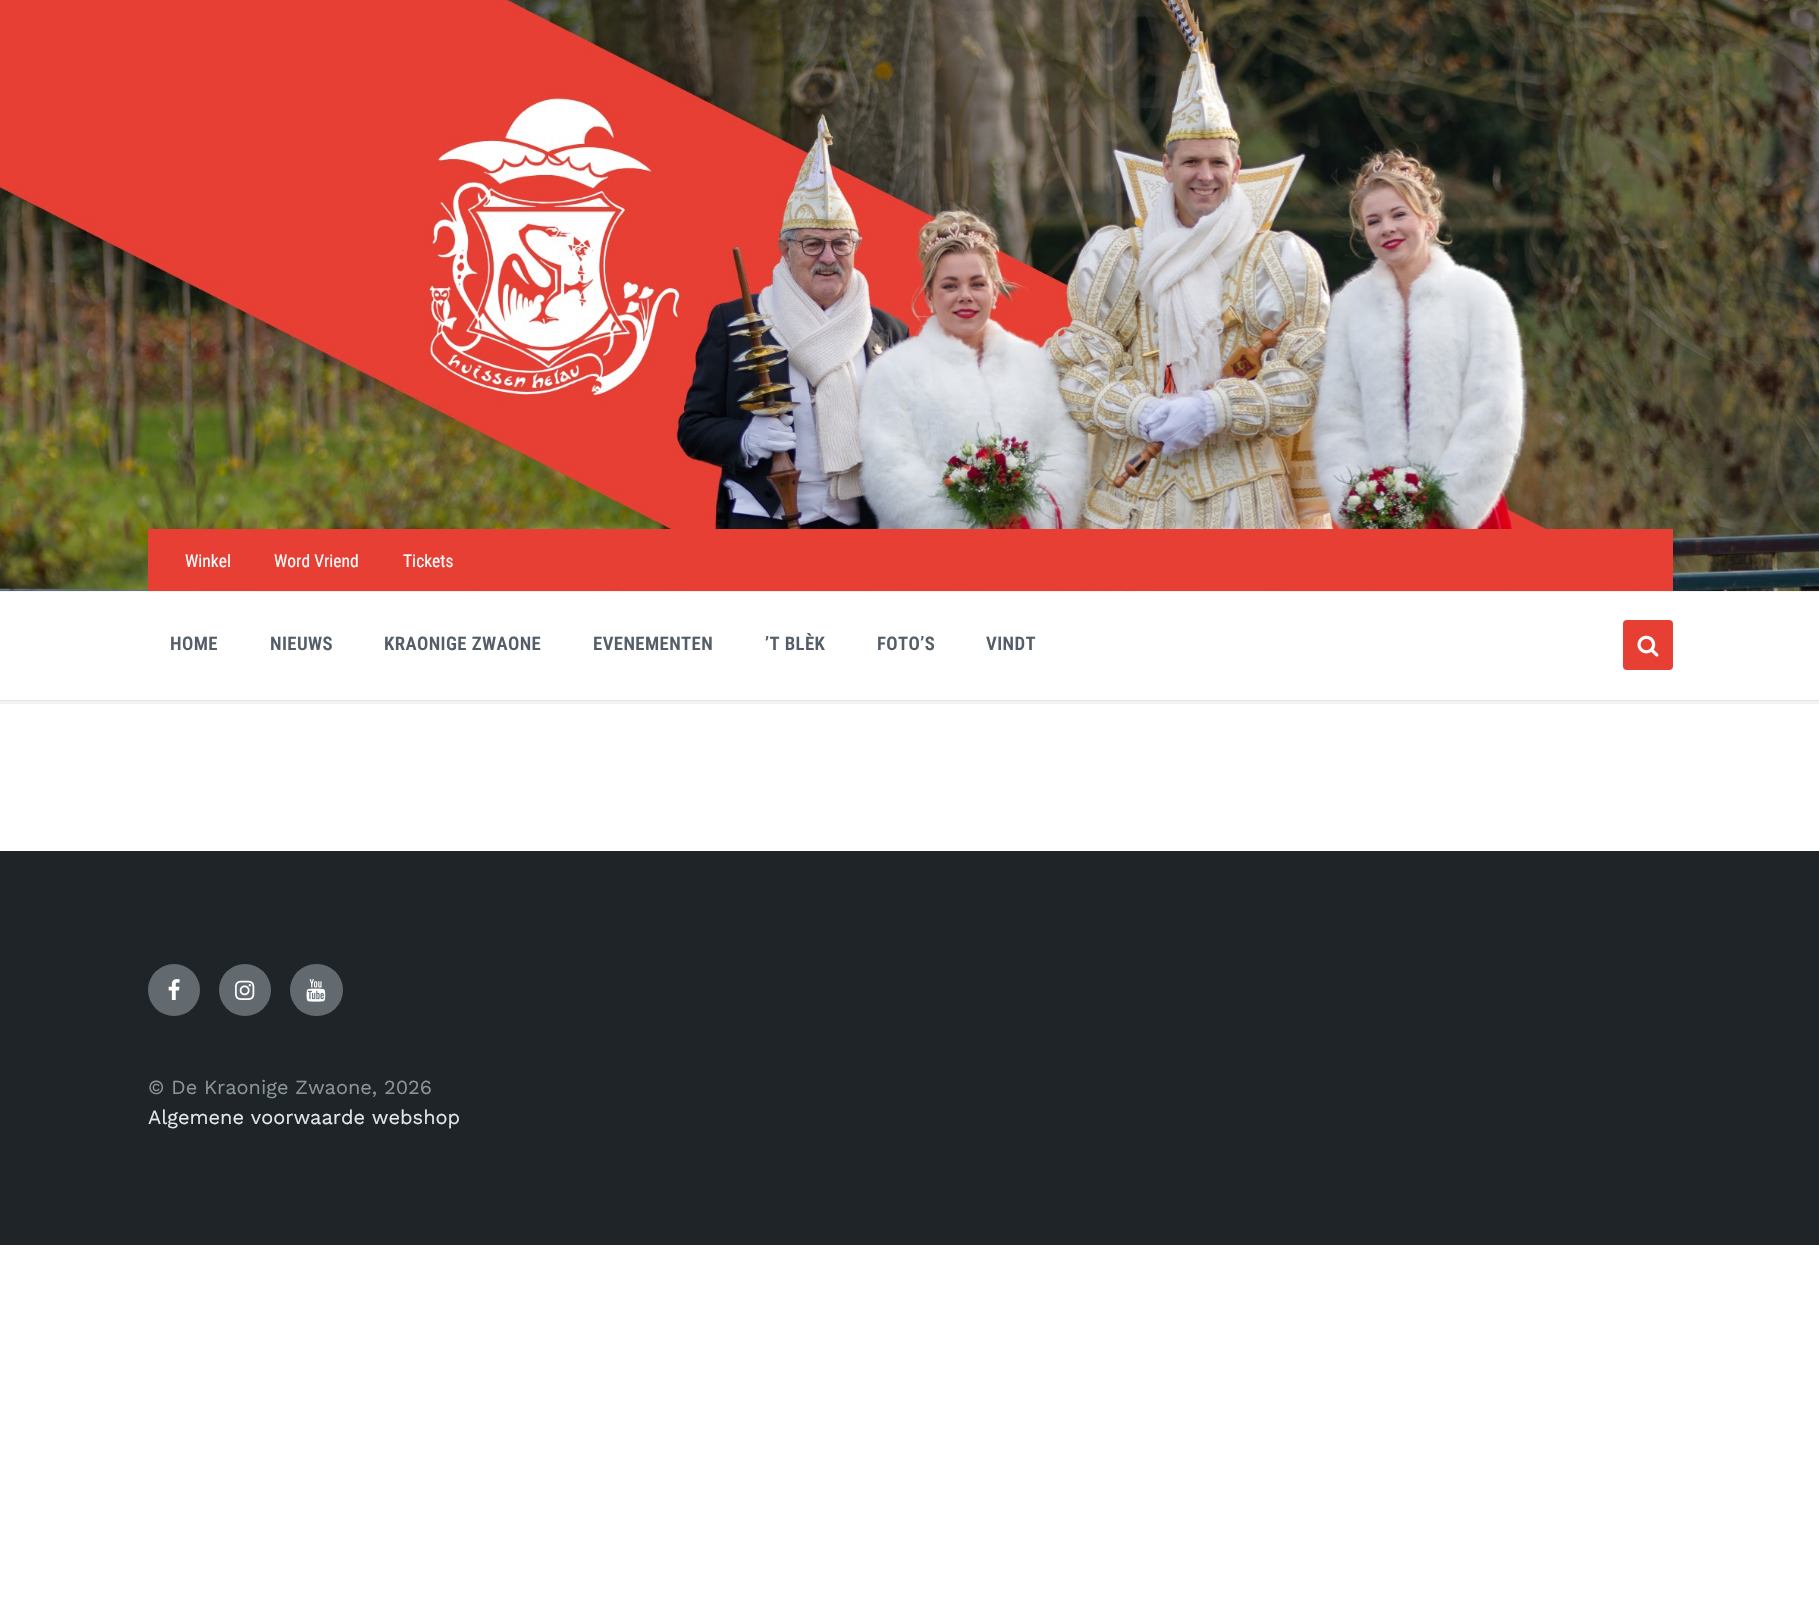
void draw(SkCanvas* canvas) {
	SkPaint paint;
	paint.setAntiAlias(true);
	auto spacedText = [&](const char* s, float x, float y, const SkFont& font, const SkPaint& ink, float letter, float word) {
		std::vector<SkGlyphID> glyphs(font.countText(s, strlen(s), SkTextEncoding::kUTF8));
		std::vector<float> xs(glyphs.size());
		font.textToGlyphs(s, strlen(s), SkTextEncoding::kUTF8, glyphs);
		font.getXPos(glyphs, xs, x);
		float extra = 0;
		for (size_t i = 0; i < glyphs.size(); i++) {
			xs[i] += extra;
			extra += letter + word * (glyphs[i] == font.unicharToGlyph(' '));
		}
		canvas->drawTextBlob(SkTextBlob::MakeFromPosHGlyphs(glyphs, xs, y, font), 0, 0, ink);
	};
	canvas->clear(0xffffffff);
	paint.setStroke(true);
	paint.setStrokeWidth(3);
	paint.setColor(0xfff2f2f2);
	canvas->drawRect(SkRect::MakeXYWH(-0.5, 590.5, 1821, 112), paint);
	paint.setStroke(false);
	paint.setColor(0xffffffff);
	canvas->drawRect(SkRect::MakeXYWH(0, 591, 1819, 109), paint);
	canvas->drawImageRect(SkImages::DeferredFromEncodedData(SkData::MakeFromFileName("img1.png")), SkRect::MakeXYWH(0, 0, 1819, 592), SkSamplingOptions());
	paint.setColor(0xffe83f35);
	canvas->drawRect(SkRect::MakeXYWH(148, 529, 1525, 62), paint);
	SkFont f1(fontMgr->matchFamilyStyle("Roboto Condensed", SkFontStyle::Normal()), 17.5);
	f1.setSubpixel(true);
	paint.setColor(0xffffffff);
	canvas->drawString("Winkel", 185, 567, f1, paint);
	canvas->drawString("Word Vriend", 274, 567, f1, paint);
	canvas->drawString("Tickets", 403, 567, f1, paint);
	paint.setColor(0xffe6e6e6);
	canvas->drawRect(SkRect::MakeXYWH(0, 700, 1819, 1), paint);
	SkFont f2(fontMgr->matchFamilyStyle("Roboto Condensed", SkFontStyle(600, SkFontStyle::kNormal_Width, SkFontStyle::kUpright_Slant)), 18.75);
	f2.setSubpixel(true);
	paint.setColor(0xff545e69);
	spacedText("HOME", 170, 650, f2, paint, 0.4, 0);
	spacedText("NIEUWS", 270, 650, f2, paint, 0.4, 0);
	spacedText("KRAONIGE ZWAONE", 384, 650, f2, paint, 0.4, 0);
	spacedText("EVENEMENTEN", 593, 650, f2, paint, 0.4, 0);
	spacedText("’T BLÈK", 765, 650, f2, paint, 0.4, 0);
	spacedText("FOTO’S", 877, 650, f2, paint, 0.4, 0);
	spacedText("VINDT", 986, 650, f2, paint, 0.4, 0);
	paint.setColor(0xffe83f35);
	canvas->drawRoundRect(SkRect::MakeXYWH(1623, 620, 50, 50), 4, 4, paint);
	canvas->drawImageRect(SkImages::DeferredFromEncodedData(SkData::MakeFromFileName("img2.png")), SkRect::MakeXYWH(1637, 635, 22, 22), SkSamplingOptions());
	paint.setColor(0xff1e2427);
	canvas->drawRect(SkRect::MakeXYWH(0, 851, 1819, 394), paint);
	paint.setColor(0xff626a70);
	canvas->drawCircle(174, 990, 26, paint);
	canvas->drawImageRect(SkImages::DeferredFromEncodedData(SkData::MakeFromFileName("img3.png")), SkRect::MakeXYWH(168, 979, 12, 21), SkSamplingOptions());
	canvas->drawCircle(245, 990, 26, paint);
	canvas->drawImageRect(SkImages::DeferredFromEncodedData(SkData::MakeFromFileName("img4.png")), SkRect::MakeXYWH(235, 980, 20, 20), SkSamplingOptions());
	canvas->drawRoundRect(SkRect::MakeXYWH(290, 964, 53, 52), 26, 26, paint);
	canvas->drawImageRect(SkImages::DeferredFromEncodedData(SkData::MakeFromFileName("img5.png")), SkRect::MakeXYWH(306, 979, 20, 23), SkSamplingOptions());
	SkFont f3(fontMgr->matchFamilyStyle("Work Sans", SkFontStyle::Normal()), 20);
	f3.setSubpixel(true);
	paint.setColor(0xff8a949b);
	canvas->drawString("© De Kraonige Zwaone, 2026", 148, 1094, f3, paint);
	paint.setColor(0xffe1e7ec);
	canvas->drawString("Algemene voorwaarde webshop", 148, 1124, f3, paint);
}
